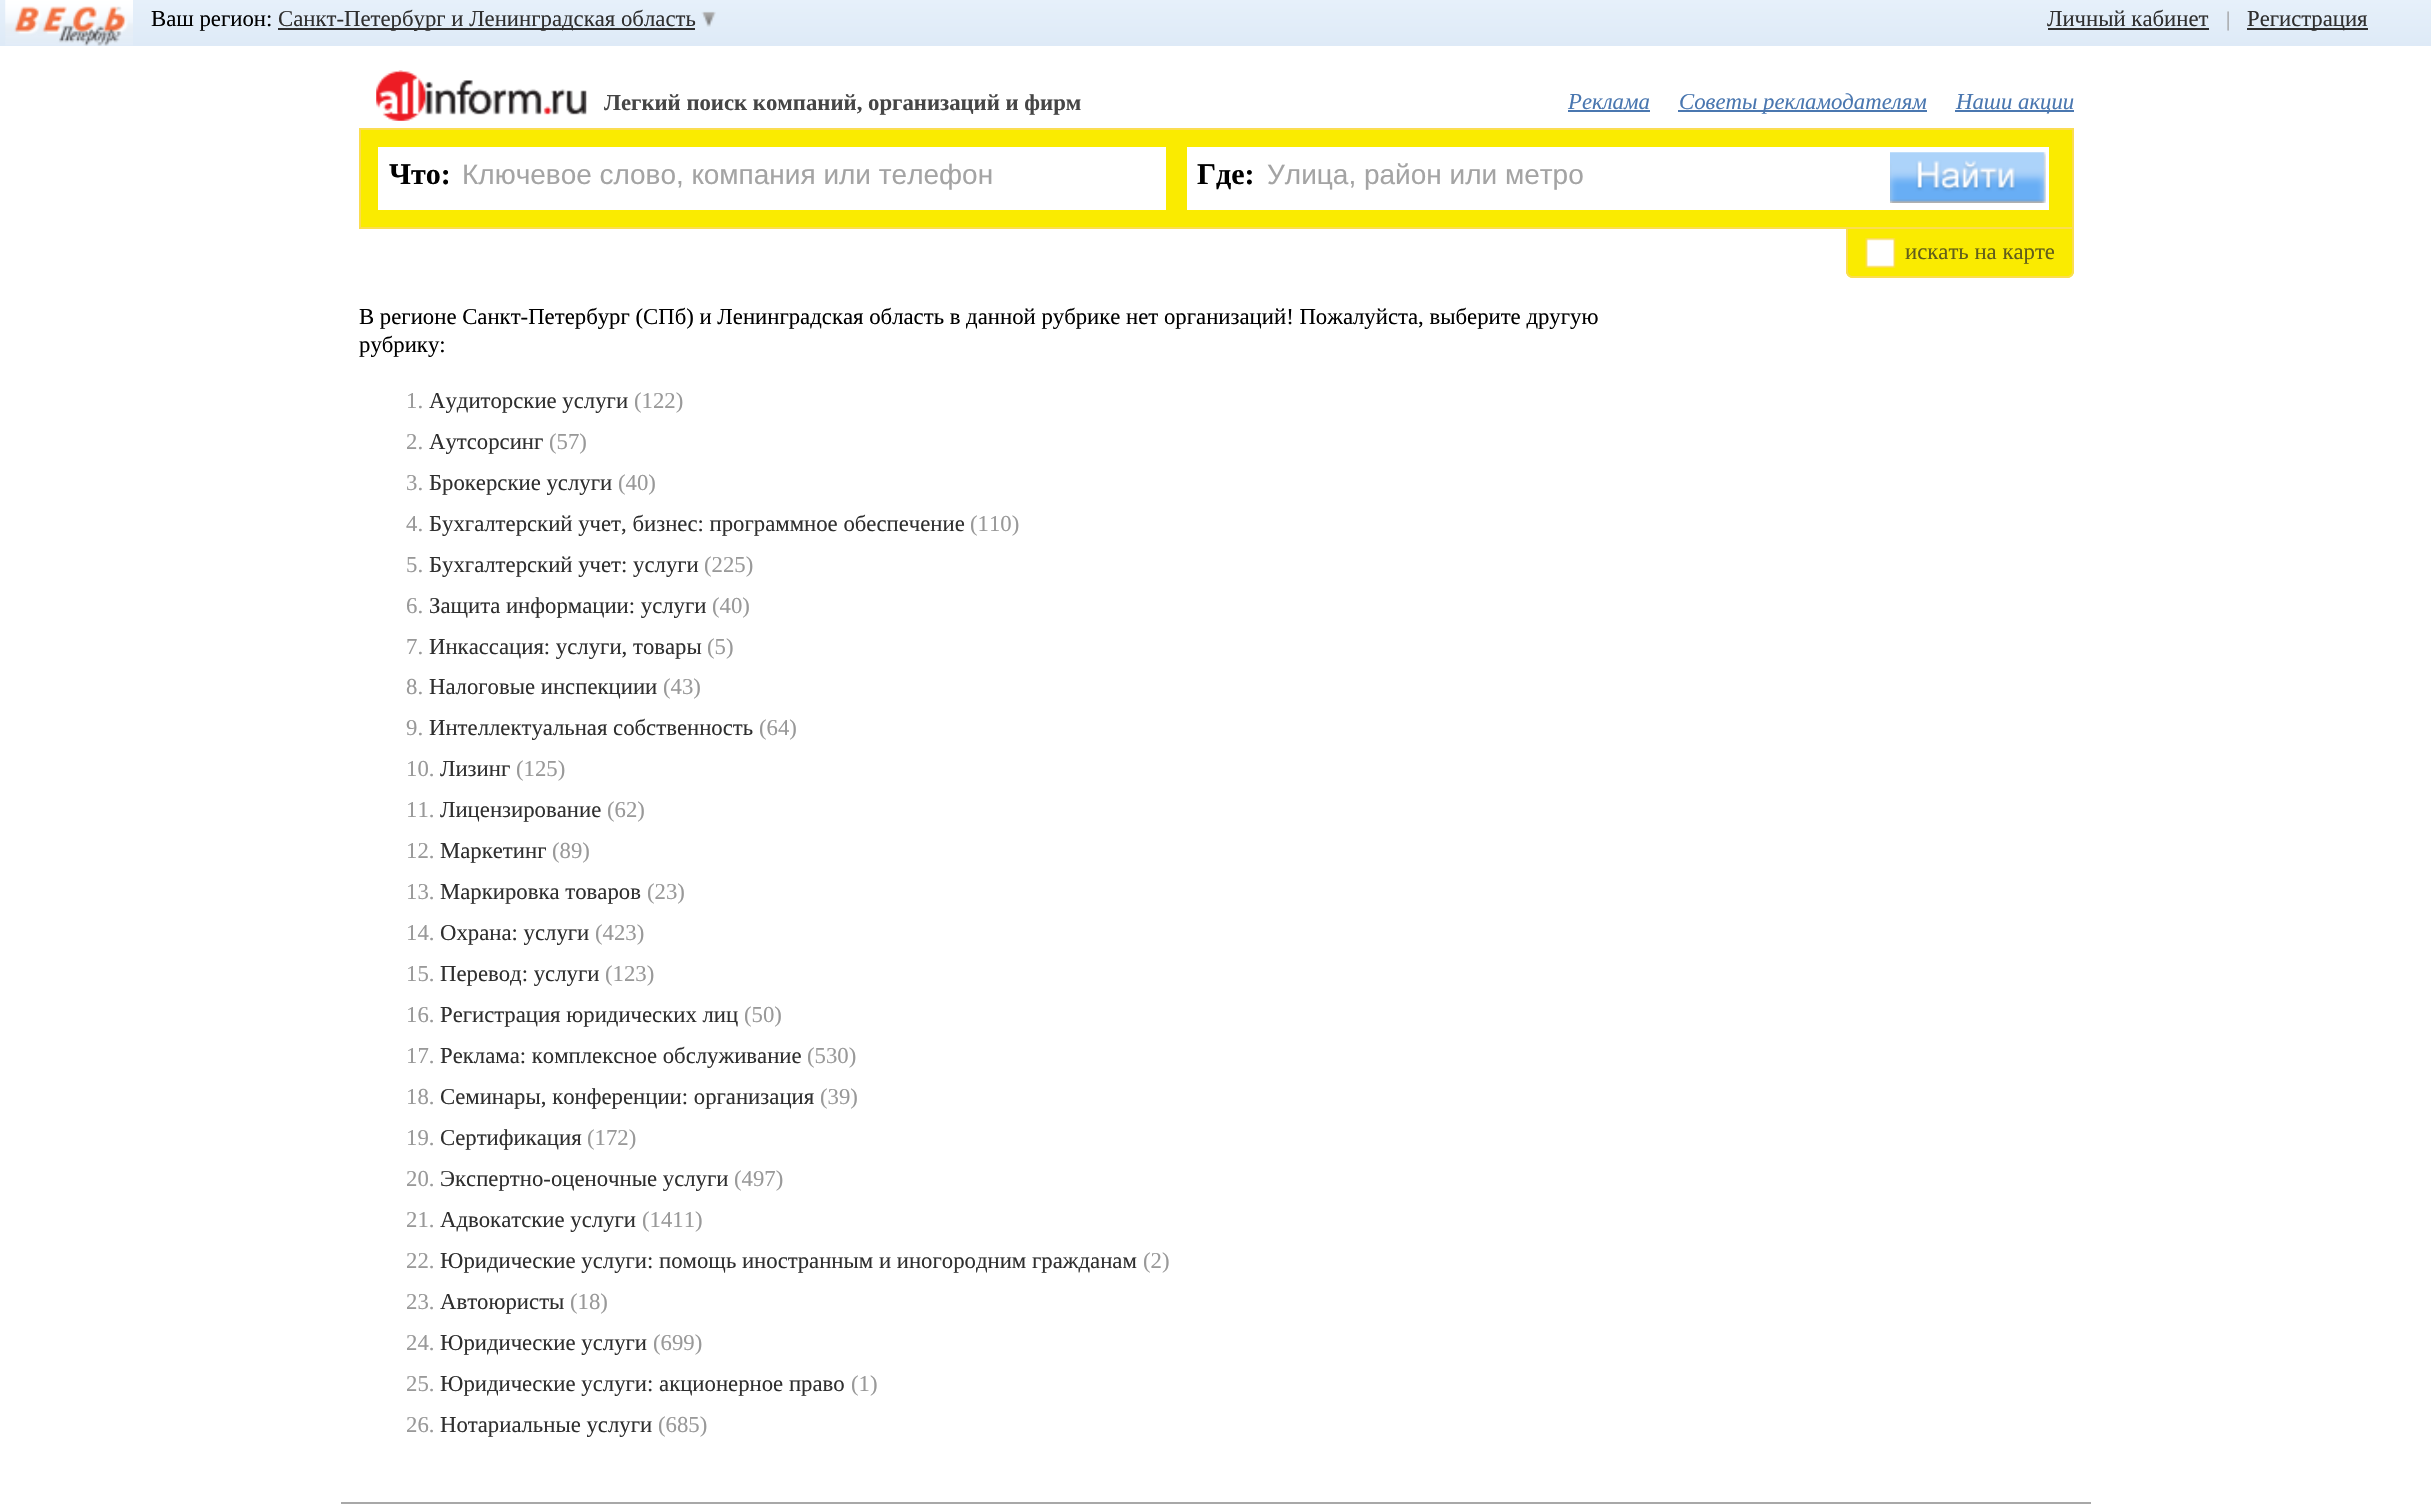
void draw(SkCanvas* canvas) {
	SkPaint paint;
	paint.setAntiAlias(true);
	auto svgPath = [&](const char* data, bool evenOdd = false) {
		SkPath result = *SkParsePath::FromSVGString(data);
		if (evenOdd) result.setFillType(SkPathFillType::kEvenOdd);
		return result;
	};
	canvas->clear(0xffffffff);
	{
		const SkColor colors[] = {0xffe6f0fa, 0xffdeeaf7};
		const float stops[] = {0, 1};
		const SkPoint ends[] = {{1222, 0}, {1222, 46}};
		paint.setShader(SkGradientShader::MakeLinear(ends, colors, stops, 2, SkTileMode::kClamp));
		paint.setAlpha(255);
	}
	canvas->drawRect(SkRect::MakeXYWH(0, 0, 2431, 46), paint);
	canvas->drawImageRect(SkImages::DeferredFromEncodedData(SkData::MakeFromFileName("img1.png")), SkRect::MakeXYWH(5, 0, 128, 46), SkSamplingOptions());
	SkFont f1(fontMgr->matchFamilyStyle("Liberation Serif", SkFontStyle::Normal()), 22.75);
	f1.setSubpixel(true);
	paint.setShader(nullptr);
	paint.setColor(0xff000000);
	canvas->drawString("Ваш регион:", 151, 26, f1, paint);
	paint.setColor(0xff2f2f2f);
	canvas->drawRect(SkRect::MakeXYWH(278, 28, 417, 2), paint);
	canvas->drawString("Санкт-Петербург и Ленинградская область", 278, 26, f1, paint);
	canvas->drawImageRect(SkImages::DeferredFromEncodedData(SkData::MakeFromFileName("img2.png")), SkRect::MakeXYWH(701, 11, 15, 16), SkSamplingOptions());
	canvas->drawString("Личный кабинет", 2047, 26, f1, paint);
	canvas->drawRect(SkRect::MakeXYWH(2048, 28, 161, 2), paint);
	SkFont f2(fontMgr->matchFamilyStyle("Liberation Serif", SkFontStyle::Normal()), 21);
	f2.setSubpixel(true);
	paint.setColor(0xff999999);
	canvas->drawString("|", 2226, 26, f2, paint);
	paint.setColor(0xff2f2f2f);
	canvas->drawRect(SkRect::MakeXYWH(2247, 28, 121, 2), paint);
	canvas->drawString("Регистрация", 2247, 26, f1, paint);
	canvas->drawImageRect(SkImages::DeferredFromEncodedData(SkData::MakeFromFileName("img3.png")), SkRect::MakeXYWH(376, 70, 211, 51), SkSamplingOptions());
	SkFont f3(fontMgr->matchFamilyStyle("Liberation Serif", SkFontStyle::Bold()), 22.75);
	f3.setSubpixel(true);
	paint.setColor(0xff464646);
	canvas->drawString("Легкий поиск компаний, организаций и фирм", 604, 110, f3, paint);
	SkFont f4(fontMgr->matchFamilyStyle("Liberation Serif", SkFontStyle::Italic()), 22.75);
	f4.setSubpixel(true);
	paint.setColor(0xff4a77b0);
	canvas->drawString("Реклама", 1568, 109, f4, paint);
	canvas->drawRect(SkRect::MakeXYWH(1568, 110, 82, 2), paint);
	canvas->drawRect(SkRect::MakeXYWH(1678, 110, 249, 2), paint);
	canvas->drawString("Советы рекламодателям", 1679, 109, f4, paint);
	canvas->drawRect(SkRect::MakeXYWH(1955, 110, 119, 2), paint);
	canvas->drawString("Наши акции", 1956, 109, f4, paint);
	paint.setColor(0xfffaeb00);
	canvas->drawRect(SkRect::MakeXYWH(360, 129, 1713, 99), paint);
	paint.setStroke(true);
	paint.setStrokeWidth(2);
	paint.setColor(0xfffbdd51);
	canvas->drawRect(SkRect::MakeXYWH(360, 129, 1713, 99), paint);
	paint.setStroke(false);
	paint.setColor(0xffffffff);
	canvas->drawRect(SkRect::MakeXYWH(378, 147, 788, 63), paint);
	SkFont f5(fontMgr->matchFamilyStyle("Liberation Serif", SkFontStyle::Bold()), 30);
	f5.setSubpixel(true);
	paint.setColor(0xff000000);
	canvas->drawString("Что:", 389, 184, f5, paint);
	SkFont f6(fontMgr->matchFamilyStyle("Liberation Sans", SkFontStyle::Normal()), 28);
	f6.setSubpixel(true);
	paint.setColor(0xffa4a4a4);
	canvas->drawString("Ключевое слово, компания или телефон", 462, 184, f6, paint);
	paint.setColor(0xffffffff);
	canvas->drawRect(SkRect::MakeXYWH(1187, 147, 862, 63), paint);
	paint.setColor(0xff000000);
	canvas->drawString("Где:", 1197, 184, f5, paint);
	paint.setColor(0xffa4a4a4);
	canvas->drawString("Улица, район или метро", 1267, 184, f6, paint);
	canvas->drawImageRect(SkImages::DeferredFromEncodedData(SkData::MakeFromFileName("img4.png")), SkRect::MakeXYWH(1890, 152, 156, 51), SkSamplingOptions());
	paint.setColor(0xfffaeb00);
	canvas->drawPath(svgPath("M1846 229H2074V271C2074 275 2071 278 2067 278H1853C1849 278 1846 275 1846 271Z"), paint);
	paint.setColor(0xfffbdd51);
	canvas->drawPath(svgPath("M1846 229H2074V271C2074 275 2071 278 2067 278H1853C1849 278 1846 275 1846 271ZM1848 229H2072V271C2072 274 2070 276 2067 276H1853C1850 276 1848 274 1848 271Z", true), paint);
	canvas->drawImageRect(SkImages::DeferredFromEncodedData(SkData::MakeFromFileName("img5.png")), SkRect::MakeXYWH(1865, 238, 31, 30), SkSamplingOptions());
	paint.setColor(0xff615d1b);
	canvas->drawString("искать на карте", 1905, 259, f1, paint);
	paint.setColor(0xff000000);
	canvas->drawString("В регионе Санкт-Петербург (СПб) и Ленинградская область в данной рубрике нет организаций! Пожалуйста, выберите другую", 359, 324, f1, paint);
	canvas->drawString("рубрику:", 359, 352, f1, paint);
	paint.setColor(0xff999999);
	canvas->drawString("1.", 406, 408, f1, paint);
	paint.setColor(0xff2f2f2f);
	canvas->drawString("Аудиторские услуги", 429, 408, f1, paint);
	paint.setColor(0xff999999);
	canvas->drawString("(122)", 634, 408, f1, paint);
	canvas->drawString("2.", 406, 449, f1, paint);
	paint.setColor(0xff2f2f2f);
	canvas->drawString("Аутсорсинг", 429, 449, f1, paint);
	paint.setColor(0xff999999);
	canvas->drawString("(57)", 549, 449, f1, paint);
	canvas->drawString("3.", 406, 490, f1, paint);
	paint.setColor(0xff2f2f2f);
	canvas->drawString("Брокерские услуги", 429, 490, f1, paint);
	paint.setColor(0xff999999);
	canvas->drawString("(40)", 618, 490, f1, paint);
	canvas->drawString("4.", 406, 531, f1, paint);
	paint.setColor(0xff2f2f2f);
	canvas->drawString("Бухгалтерский учет, бизнес: программное обеспечение", 429, 531, f1, paint);
	paint.setColor(0xff999999);
	canvas->drawString("(110)", 970, 531, f1, paint);
	canvas->drawString("5.", 406, 572, f1, paint);
	paint.setColor(0xff2f2f2f);
	canvas->drawString("Бухгалтерский учет: услуги", 429, 572, f1, paint);
	paint.setColor(0xff999999);
	canvas->drawString("(225)", 704, 572, f1, paint);
	canvas->drawString("6.", 406, 613, f1, paint);
	paint.setColor(0xff2f2f2f);
	canvas->drawString("Защита информации: услуги", 429, 613, f1, paint);
	paint.setColor(0xff999999);
	canvas->drawString("(40)", 712, 613, f1, paint);
	canvas->drawString("7.", 406, 654, f1, paint);
	paint.setColor(0xff2f2f2f);
	canvas->drawString("Инкассация: услуги, товары", 429, 654, f1, paint);
	paint.setColor(0xff999999);
	canvas->drawString("(5)", 707, 654, f1, paint);
	canvas->drawString("8.", 406, 694, f1, paint);
	paint.setColor(0xff2f2f2f);
	canvas->drawString("Налоговые инспекциии", 429, 694, f1, paint);
	paint.setColor(0xff999999);
	canvas->drawString("(43)", 663, 694, f1, paint);
	canvas->drawString("9.", 406, 735, f1, paint);
	paint.setColor(0xff2f2f2f);
	canvas->drawString("Интеллектуальная собственность", 429, 735, f1, paint);
	paint.setColor(0xff999999);
	canvas->drawString("(64)", 759, 735, f1, paint);
	canvas->drawString("10.", 406, 776, f1, paint);
	paint.setColor(0xff2f2f2f);
	canvas->drawString("Лизинг", 440, 776, f1, paint);
	paint.setColor(0xff999999);
	canvas->drawString("(125)", 516, 776, f1, paint);
	canvas->drawString("11.", 406, 817, f1, paint);
	paint.setColor(0xff2f2f2f);
	canvas->drawString("Лицензирование", 440, 817, f1, paint);
	paint.setColor(0xff999999);
	canvas->drawString("(62)", 607, 817, f1, paint);
	canvas->drawString("12.", 406, 858, f1, paint);
	paint.setColor(0xff2f2f2f);
	canvas->drawString("Маркетинг", 440, 858, f1, paint);
	paint.setColor(0xff999999);
	canvas->drawString("(89)", 552, 858, f1, paint);
	canvas->drawString("13.", 406, 899, f1, paint);
	paint.setColor(0xff2f2f2f);
	canvas->drawString("Маркировка товаров", 440, 899, f1, paint);
	paint.setColor(0xff999999);
	canvas->drawString("(23)", 647, 899, f1, paint);
	canvas->drawString("14.", 406, 940, f1, paint);
	paint.setColor(0xff2f2f2f);
	canvas->drawString("Охрана: услуги", 440, 940, f1, paint);
	paint.setColor(0xff999999);
	canvas->drawString("(423)", 595, 940, f1, paint);
	canvas->drawString("15.", 406, 981, f1, paint);
	paint.setColor(0xff2f2f2f);
	canvas->drawString("Перевод: услуги", 440, 981, f1, paint);
	paint.setColor(0xff999999);
	canvas->drawString("(123)", 605, 981, f1, paint);
	canvas->drawString("16.", 406, 1022, f1, paint);
	paint.setColor(0xff2f2f2f);
	canvas->drawString("Регистрация юридических лиц", 440, 1022, f1, paint);
	paint.setColor(0xff999999);
	canvas->drawString("(50)", 744, 1022, f1, paint);
	canvas->drawString("17.", 406, 1063, f1, paint);
	paint.setColor(0xff2f2f2f);
	canvas->drawString("Реклама: комплексное обслуживание", 440, 1063, f1, paint);
	paint.setColor(0xff999999);
	canvas->drawString("(530)", 807, 1063, f1, paint);
	canvas->drawString("18.", 406, 1104, f1, paint);
	paint.setColor(0xff2f2f2f);
	canvas->drawString("Семинары, конференции: организация", 440, 1104, f1, paint);
	paint.setColor(0xff999999);
	canvas->drawString("(39)", 820, 1104, f1, paint);
	canvas->drawString("19.", 406, 1145, f1, paint);
	paint.setColor(0xff2f2f2f);
	canvas->drawString("Сертификация", 440, 1145, f1, paint);
	paint.setColor(0xff999999);
	canvas->drawString("(172)", 587, 1145, f1, paint);
	canvas->drawString("20.", 406, 1186, f1, paint);
	paint.setColor(0xff2f2f2f);
	canvas->drawString("Экспертно-оценочные услуги", 440, 1186, f1, paint);
	paint.setColor(0xff999999);
	canvas->drawString("(497)", 734, 1186, f1, paint);
	canvas->drawString("21.", 406, 1227, f1, paint);
	paint.setColor(0xff2f2f2f);
	canvas->drawString("Адвокатские услуги", 440, 1227, f1, paint);
	paint.setColor(0xff999999);
	canvas->drawString("(1411)", 642, 1227, f1, paint);
	canvas->drawString("22.", 406, 1268, f1, paint);
	paint.setColor(0xff2f2f2f);
	canvas->drawString("Юридические услуги: помощь иностранным и иногородним гражданам", 440, 1268, f1, paint);
	paint.setColor(0xff999999);
	canvas->drawString("(2)", 1143, 1268, f1, paint);
	canvas->drawString("23.", 406, 1309, f1, paint);
	paint.setColor(0xff2f2f2f);
	canvas->drawString("Автоюристы", 440, 1309, f1, paint);
	paint.setColor(0xff999999);
	canvas->drawString("(18)", 570, 1309, f1, paint);
	canvas->drawString("24.", 406, 1350, f1, paint);
	paint.setColor(0xff2f2f2f);
	canvas->drawString("Юридические услуги", 440, 1350, f1, paint);
	paint.setColor(0xff999999);
	canvas->drawString("(699)", 653, 1350, f1, paint);
	canvas->drawString("25.", 406, 1391, f1, paint);
	paint.setColor(0xff2f2f2f);
	canvas->drawString("Юридические услуги: акционерное право", 440, 1391, f1, paint);
	paint.setColor(0xff999999);
	canvas->drawString("(1)", 851, 1391, f1, paint);
	canvas->drawString("26.", 406, 1432, f1, paint);
	paint.setColor(0xff2f2f2f);
	canvas->drawString("Нотариальные услуги", 440, 1432, f1, paint);
	paint.setColor(0xff999999);
	canvas->drawString("(685)", 658, 1432, f1, paint);
	paint.setColor(0xffa8a8a8);
	canvas->drawRect(SkRect::MakeXYWH(341, 1502, 1750, 2), paint);
}
